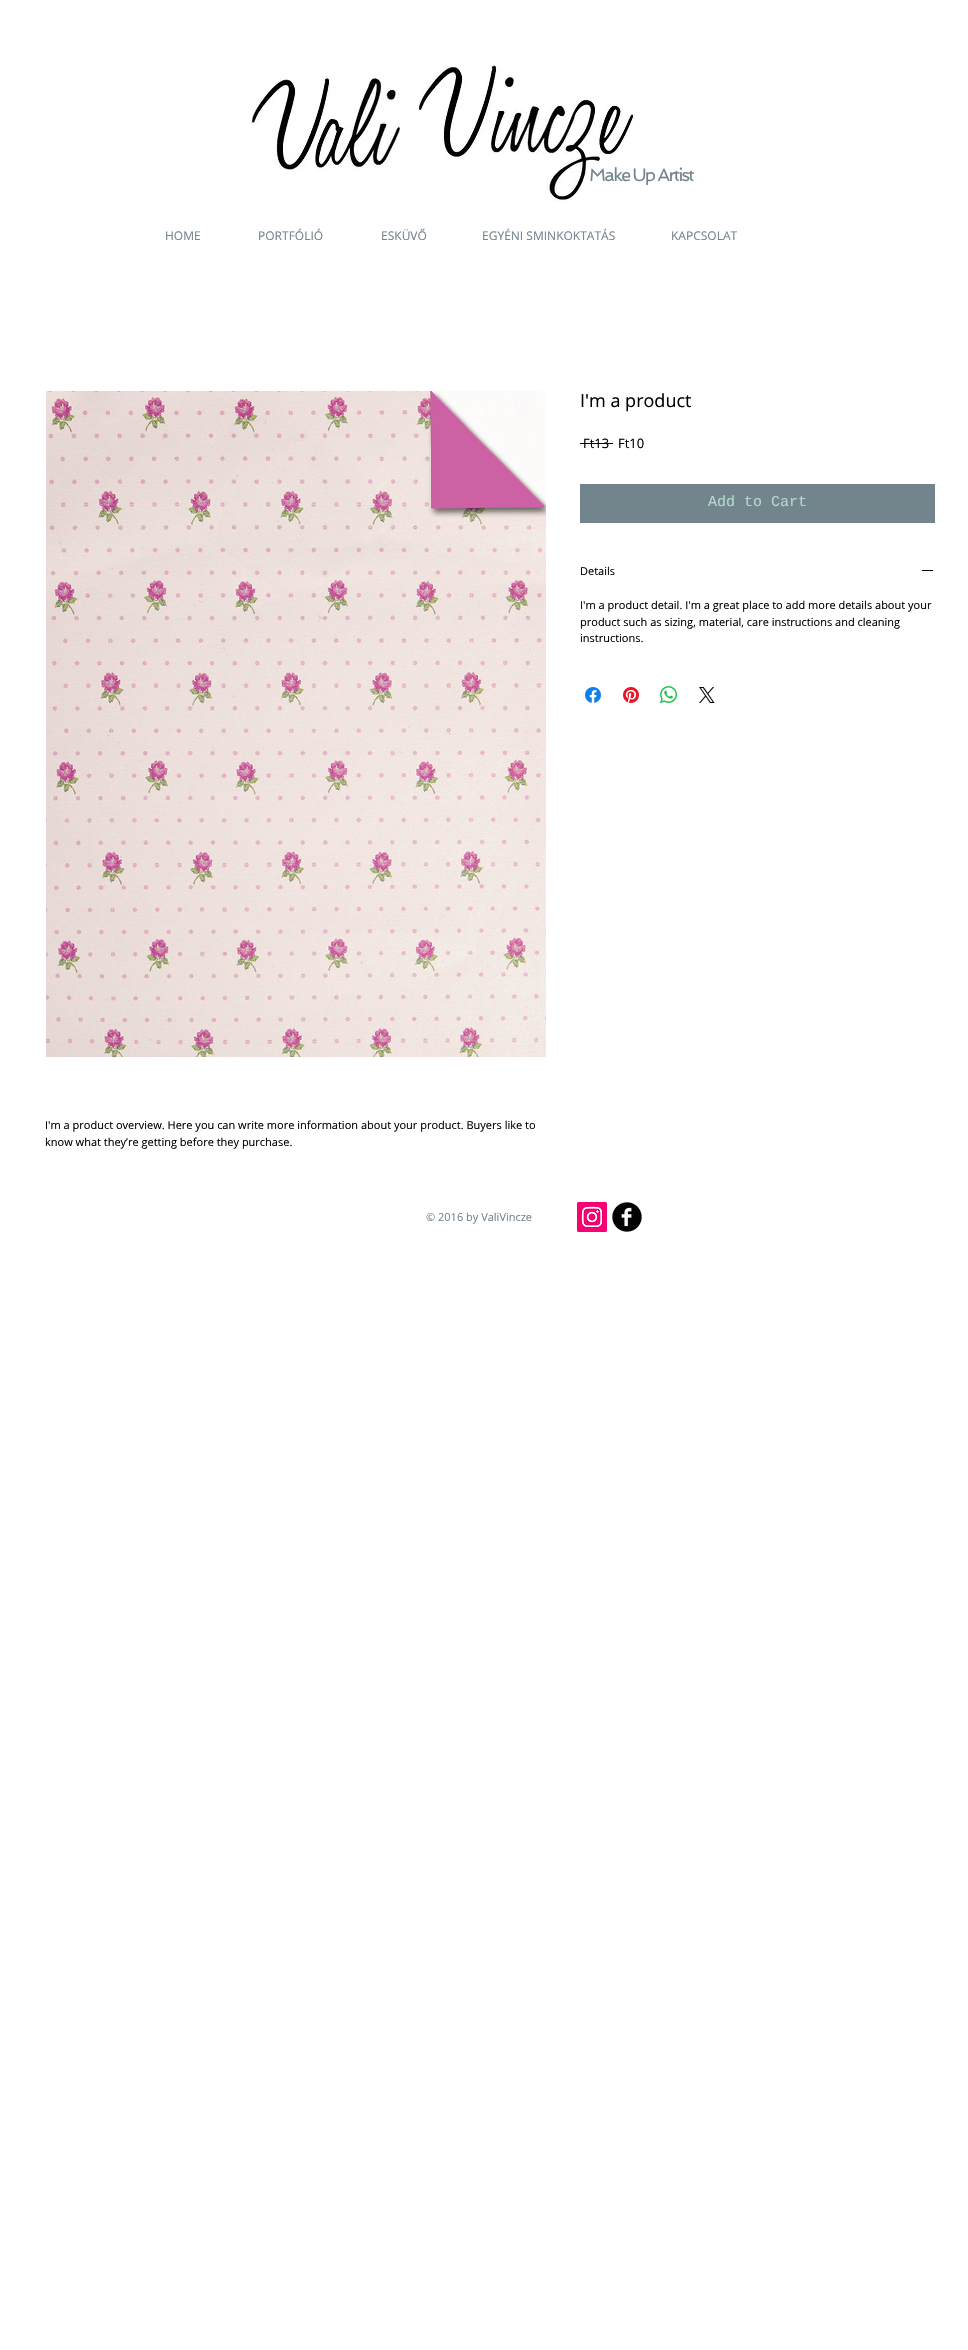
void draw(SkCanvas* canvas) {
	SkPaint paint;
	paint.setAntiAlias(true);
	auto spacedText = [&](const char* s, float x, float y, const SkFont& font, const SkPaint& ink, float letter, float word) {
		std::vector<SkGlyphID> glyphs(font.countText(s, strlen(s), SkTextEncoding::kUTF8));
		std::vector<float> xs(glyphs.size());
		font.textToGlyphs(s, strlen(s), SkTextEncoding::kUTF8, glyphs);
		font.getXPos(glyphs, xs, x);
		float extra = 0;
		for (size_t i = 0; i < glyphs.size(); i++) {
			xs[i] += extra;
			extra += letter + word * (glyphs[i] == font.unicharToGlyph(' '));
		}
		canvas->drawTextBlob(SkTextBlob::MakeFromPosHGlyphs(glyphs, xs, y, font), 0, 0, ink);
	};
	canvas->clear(0xffffffff);
	canvas->drawImageRect(SkImages::DeferredFromEncodedData(SkData::MakeFromFileName("img1.png")), SkRect::MakeXYWH(251, 63, 384, 139), SkSamplingOptions());
	SkFont f1(fontMgr->matchFamilyStyle("Spinnaker", SkFontStyle::Normal()), 18);
	f1.setSubpixel(true);
	paint.setColor(0xff72858c);
	spacedText("Make Up Artist", 589, 181, f1, paint, -1.75, 0);
	SkFont f2(fontMgr->matchFamilyStyle("Open Sans", SkFontStyle::Normal()), 12);
	f2.setSubpixel(true);
	canvas->drawString("HOME", 165, 240, f2, paint);
	canvas->drawString("PORTFÓLIÓ", 258, 240, f2, paint);
	canvas->drawString("ESKÜVŐ", 381, 240, f2, paint);
	canvas->drawString("EGYÉNI SMINKOKTATÁS", 482, 240, f2, paint);
	canvas->drawString("KAPCSOLAT", 671, 240, f2, paint);
	SkFont f3(fontMgr->matchFamilyStyle("Open Sans", SkFontStyle::Normal()), 18);
	f3.setSubpixel(true);
	paint.setColor(0xff000000);
	canvas->drawString("I'm a product", 580, 407, f3, paint);
	SkFont f4(fontMgr->matchFamilyStyle("Open Sans", SkFontStyle::Normal()), 13);
	f4.setSubpixel(true);
	canvas->drawString("Ft13", 583, 448, f4, paint);
	canvas->drawRect(SkRect::MakeXYWH(580, 443, 33, 1), paint);
	canvas->drawString("Ft10", 618, 448, f4, paint);
	paint.setColor(0xff72858c);
	canvas->drawRect(SkRect::MakeXYWH(580, 484, 355, 39), paint);
	SkFont f5(fontMgr->matchFamilyStyle("Liberation Mono", SkFontStyle::Normal()), 15);
	f5.setSubpixel(true);
	paint.setColor(0xffb3d9cc);
	canvas->drawString("Add to Cart", 708, 506, f5, paint);
	SkFont f6(fontMgr->matchFamilyStyle("Open Sans", SkFontStyle::Normal()), 11);
	f6.setSubpixel(true);
	paint.setColor(0xff000000);
	canvas->drawString("Details", 580, 575, f6, paint);
	canvas->drawRect(SkRect::MakeXYWH(922, 570, 11, 1), paint);
	canvas->drawString("I'm a product detail. I'm a great place to add more details about your", 580, 609, f6, paint);
	canvas->drawString("product such as sizing, material, care instructions and cleaning", 580, 626, f6, paint);
	canvas->drawString("instructions.", 580, 642, f6, paint);
	canvas->drawImageRect(SkImages::DeferredFromEncodedData(SkData::MakeFromFileName("img2.png")), SkRect::MakeXYWH(585, 687, 16, 16), SkSamplingOptions());
	canvas->drawImageRect(SkImages::DeferredFromEncodedData(SkData::MakeFromFileName("img3.png")), SkRect::MakeXYWH(623, 687, 16, 16), SkSamplingOptions());
	canvas->drawImageRect(SkImages::DeferredFromEncodedData(SkData::MakeFromFileName("img4.png")), SkRect::MakeXYWH(660, 686, 17, 17), SkSamplingOptions());
	canvas->drawImageRect(SkImages::DeferredFromEncodedData(SkData::MakeFromFileName("img5.png")), SkRect::MakeXYWH(699, 687, 16, 16), SkSamplingOptions());
	canvas->drawImageRect(SkImages::DeferredFromEncodedData(SkData::MakeFromFileName("img6.png")), SkRect::MakeXYWH(46, 391, 500, 666), SkSamplingOptions());
	canvas->drawString("I'm a product overview. Here you can write more information about your product. Buyers like to", 45, 1129, f6, paint);
	canvas->drawString("know what they’re getting before they purchase.", 45, 1146, f6, paint);
	paint.setColor(0xff72858c);
	canvas->drawString("© 2016 by ValiVincze", 426, 1221, f6, paint);
	canvas->drawImageRect(SkImages::DeferredFromEncodedData(SkData::MakeFromFileName("img7.png")), SkRect::MakeXYWH(577, 1202, 30, 30), SkSamplingOptions());
	canvas->drawImageRect(SkImages::DeferredFromEncodedData(SkData::MakeFromFileName("img8.png")), SkRect::MakeXYWH(612, 1202, 30, 30), SkSamplingOptions());
}
